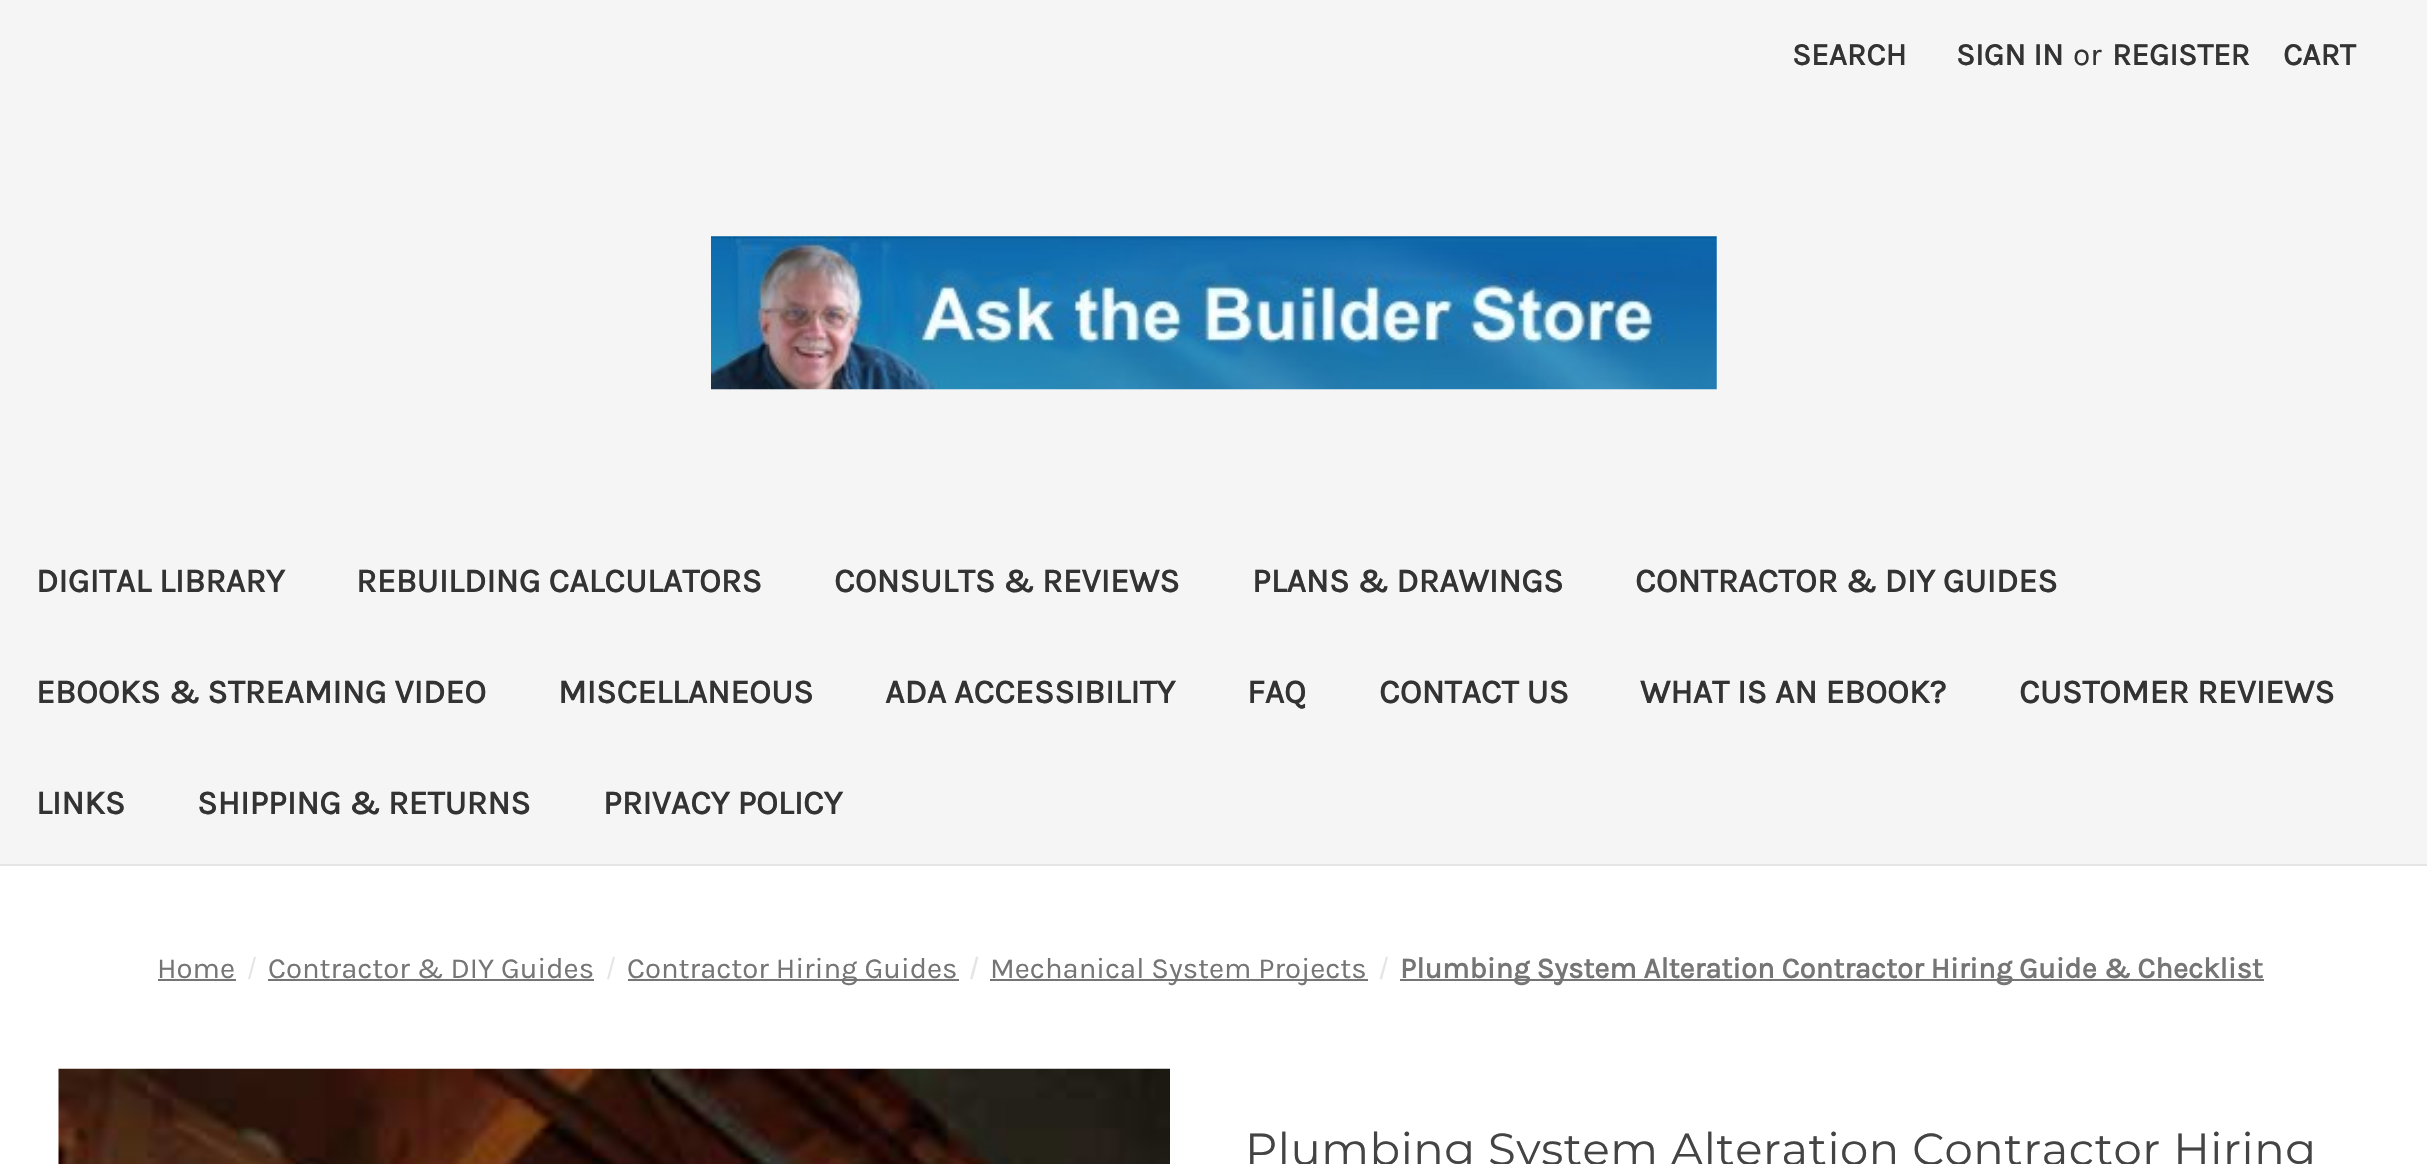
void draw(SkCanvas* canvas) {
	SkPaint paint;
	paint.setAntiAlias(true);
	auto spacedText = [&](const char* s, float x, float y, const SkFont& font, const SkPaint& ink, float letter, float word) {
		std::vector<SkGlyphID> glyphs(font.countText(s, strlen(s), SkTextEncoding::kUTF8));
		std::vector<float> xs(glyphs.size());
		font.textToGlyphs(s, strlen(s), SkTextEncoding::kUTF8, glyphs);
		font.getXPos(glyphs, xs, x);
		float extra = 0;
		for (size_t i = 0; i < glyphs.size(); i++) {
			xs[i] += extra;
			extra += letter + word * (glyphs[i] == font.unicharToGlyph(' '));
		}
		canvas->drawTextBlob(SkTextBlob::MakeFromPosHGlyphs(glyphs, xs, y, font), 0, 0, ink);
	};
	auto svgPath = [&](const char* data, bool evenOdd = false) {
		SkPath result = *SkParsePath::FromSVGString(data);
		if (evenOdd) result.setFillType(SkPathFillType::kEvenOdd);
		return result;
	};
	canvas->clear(0xffffffff);
	paint.setColor(0xfff5f5f5);
	canvas->drawRect(SkRect::MakeXYWH(0, 0, 2427, 864), paint);
	paint.setColor(0xffe5e5e5);
	canvas->drawRect(SkRect::MakeXYWH(0, 864, 2427, 2), paint);
	SkFont f1(fontMgr->matchFamilyStyle("Karla", SkFontStyle::Bold()), 31.5);
	f1.setSubpixel(true);
	paint.setColor(0xff333333);
	canvas->drawString("SEARCH", 1792, 65, f1, paint);
	canvas->drawString("SIGN IN", 1956, 65, f1, paint);
	SkFont f2(fontMgr->matchFamilyStyle("Karla", SkFontStyle::Normal()), 31.5);
	f2.setSubpixel(true);
	canvas->drawString("or", 2073, 65, f2, paint);
	canvas->drawString("REGISTER", 2112, 65, f1, paint);
	canvas->drawString("CART", 2283, 65, f1, paint);
	canvas->drawImageRect(SkImages::DeferredFromEncodedData(SkData::MakeFromFileName("img1.png")), SkRect::MakeXYWH(711, 236, 1006, 154), SkSamplingOptions());
	SkFont f3(fontMgr->matchFamilyStyle("Karla", SkFontStyle::Bold()), 33.75);
	f3.setSubpixel(true);
	canvas->drawString("DIGITAL LIBRARY", 36, 592, f3, paint);
	canvas->drawString("REBUILDING CALCULATORS", 356, 592, f3, paint);
	canvas->drawString("CONSULTS & REVIEWS", 834, 592, f3, paint);
	canvas->drawString("PLANS & DRAWINGS", 1252, 592, f3, paint);
	canvas->drawString("CONTRACTOR & DIY GUIDES", 1635, 592, f3, paint);
	canvas->drawString("EBOOKS & STREAMING VIDEO", 36, 703, f3, paint);
	canvas->drawString("MISCELLANEOUS", 558, 703, f3, paint);
	canvas->drawString("ADA ACCESSIBILITY", 885, 703, f3, paint);
	canvas->drawString("FAQ", 1247, 703, f3, paint);
	canvas->drawString("CONTACT US", 1379, 703, f3, paint);
	canvas->drawString("WHAT IS AN EBOOK?", 1640, 703, f3, paint);
	canvas->drawString("CUSTOMER REVIEWS", 2019, 703, f3, paint);
	canvas->drawString("LINKS", 36, 814, f3, paint);
	canvas->drawString("SHIPPING & RETURNS", 197, 814, f3, paint);
	canvas->drawString("PRIVACY POLICY", 603, 814, f3, paint);
	SkFont f4(fontMgr->matchFamilyStyle("Karla", SkFontStyle::Normal()), 29.25);
	f4.setSubpixel(true);
	paint.setColor(0xff757575);
	canvas->drawString("Home", 157, 978, f4, paint);
	canvas->drawRect(SkRect::MakeXYWH(158, 979, 78, 2), paint);
	paint.setColor(0xffe5e5e5);
	canvas->drawPath(svgPath("M254 956.5L256 957L250 979.5L248 979Z"), paint);
	paint.setColor(0xff757575);
	canvas->drawString("Contractor & DIY Guides", 268, 978, f4, paint);
	canvas->drawRect(SkRect::MakeXYWH(268, 979, 326, 2), paint);
	paint.setColor(0xffe5e5e5);
	canvas->drawPath(svgPath("M613 956.5L615 957L609 979.5L607 979Z"), paint);
	paint.setColor(0xff757575);
	canvas->drawRect(SkRect::MakeXYWH(628, 979, 331, 2), paint);
	canvas->drawString("Contractor Hiring Guides", 627, 978, f4, paint);
	paint.setColor(0xffe5e5e5);
	canvas->drawPath(svgPath("M976 956.5L978.5 957L972.5 979.5L970 979Z"), paint);
	paint.setColor(0xff757575);
	canvas->drawRect(SkRect::MakeXYWH(990, 979, 378, 2), paint);
	canvas->drawString("Mechanical System Projects", 990, 978, f4, paint);
	paint.setColor(0xffe5e5e5);
	canvas->drawPath(svgPath("M1386 956.5L1388 957L1382 979.5L1379.5 979Z"), paint);
	paint.setColor(0xff757575);
	canvas->drawRect(SkRect::MakeXYWH(1400, 979, 864, 2), paint);
	SkFont f5(fontMgr->matchFamilyStyle("Karla", SkFontStyle::Bold()), 29.25);
	f5.setSubpixel(true);
	canvas->drawString("Plumbing System Alteration Contractor Hiring Guide & Checklist", 1400, 978, f5, paint);
	canvas->drawImageRect(SkImages::DeferredFromEncodedData(SkData::MakeFromFileName("img2.png")), SkRect::MakeXYWH(58, 1068, 1112, 96), SkSamplingOptions());
	SkFont f6(fontMgr->matchFamilyStyle("Montserrat", SkFontStyle::Normal()), 45);
	f6.setSubpixel(true);
	paint.setColor(0xff444444);
	spacedText("Plumbing System Alteration Contractor Hiring", 1245, 1165, f6, paint, 0.55, 0);
}
